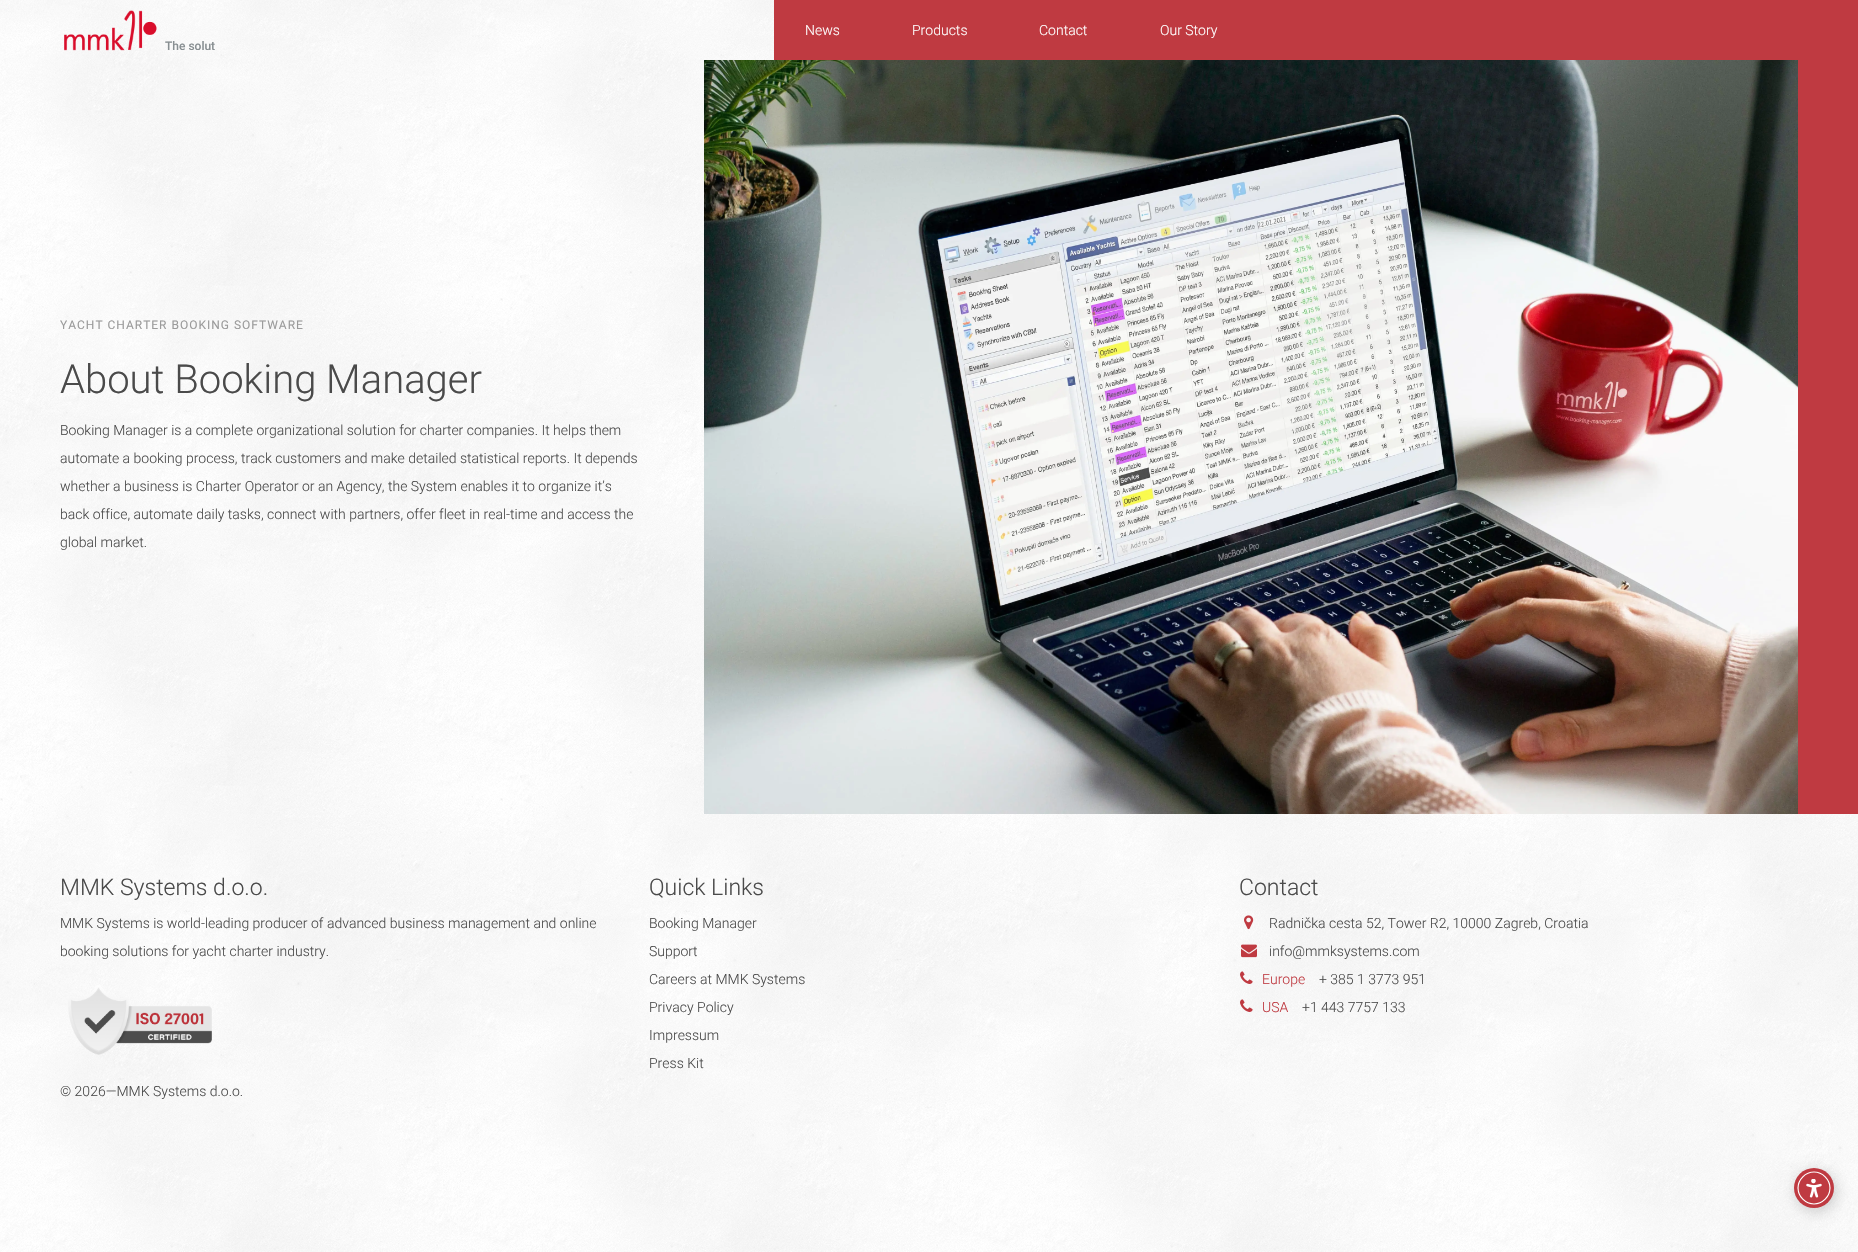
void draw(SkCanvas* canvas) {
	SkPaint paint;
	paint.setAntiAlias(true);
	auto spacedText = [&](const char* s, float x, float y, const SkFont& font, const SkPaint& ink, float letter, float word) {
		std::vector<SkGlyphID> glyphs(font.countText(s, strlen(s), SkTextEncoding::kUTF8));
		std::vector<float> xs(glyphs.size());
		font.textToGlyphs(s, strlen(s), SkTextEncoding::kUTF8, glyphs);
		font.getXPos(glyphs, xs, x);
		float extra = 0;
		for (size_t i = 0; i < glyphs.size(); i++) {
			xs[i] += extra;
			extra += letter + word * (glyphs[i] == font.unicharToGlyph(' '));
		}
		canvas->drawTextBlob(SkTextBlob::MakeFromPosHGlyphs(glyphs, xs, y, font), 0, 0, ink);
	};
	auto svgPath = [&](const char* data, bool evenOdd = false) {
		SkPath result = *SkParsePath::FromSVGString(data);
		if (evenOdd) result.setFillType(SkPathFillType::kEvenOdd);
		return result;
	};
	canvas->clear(0xffffffff);
	canvas->drawImageRect(SkImages::DeferredFromEncodedData(SkData::MakeFromFileName("img1.png")), SkRect::MakeXYWH(0, 0, 1858, 1252), SkSamplingOptions());
	paint.setColor(0xffbf3a41);
	canvas->drawRect(SkRect::MakeXYWH(774, 0, 1084, 60), paint);
	SkFont f1(fontMgr->matchFamilyStyle("Roboto", SkFontStyle(300, SkFontStyle::kNormal_Width, SkFontStyle::kUpright_Slant)), 14);
	f1.setSubpixel(true);
	paint.setColor(0xffffffff);
	canvas->drawString("News", 805, 35, f1, paint);
	canvas->drawString("Products", 912, 35, f1, paint);
	canvas->drawString("Contact", 1039, 35, f1, paint);
	canvas->drawString("Our Story", 1160, 35, f1, paint);
	canvas->drawImageRect(SkImages::DeferredFromEncodedData(SkData::MakeFromFileName("img2.png")), SkRect::MakeXYWH(64, 10, 93, 41), SkSamplingOptions());
	SkFont f2(fontMgr->matchFamilyStyle("Roboto", SkFontStyle(500, SkFontStyle::kNormal_Width, SkFontStyle::kUpright_Slant)), 12);
	f2.setSubpixel(true);
	paint.setColor(0xff888f92);
	canvas->drawString("The solut", 165, 50, f2, paint);
	SkFont f3(fontMgr->matchFamilyStyle("Roboto", SkFontStyle::Normal()), 12);
	f3.setSubpixel(true);
	paint.setColor(0xff9b9b9b);
	spacedText("YACHT CHARTER BOOKING SOFTWARE", 60, 329, f3, paint, 1, 0);
	SkFont f4(fontMgr->matchFamilyStyle("Roboto", SkFontStyle(300, SkFontStyle::kNormal_Width, SkFontStyle::kUpright_Slant)), 40);
	f4.setSubpixel(true);
	paint.setColor(0xff4a4a4a);
	canvas->drawString("About Booking Manager", 60, 393, f4, paint);
	canvas->drawString("Booking Manager is a complete organizational solution for charter companies. It helps them", 60, 435, f1, paint);
	canvas->drawString("automate a booking process, track customers and make detailed statistical reports. It depends", 60, 463, f1, paint);
	canvas->drawString("whether a business is Charter Operator or an Agency, the System enables it to organize it’s", 60, 491, f1, paint);
	canvas->drawString("back office, automate daily tasks, connect with partners, offer fleet in real-time and access the", 60, 519, f1, paint);
	canvas->drawString("global market.", 60, 547, f1, paint);
	paint.setColor(0xffbf3a41);
	canvas->drawRect(SkRect::MakeXYWH(1798, 60, 60, 754), paint);
	canvas->drawImageRect(SkImages::DeferredFromEncodedData(SkData::MakeFromFileName("img3.png")), SkRect::MakeXYWH(704, 60, 1094, 754), SkSamplingOptions());
	SkFont f5(fontMgr->matchFamilyStyle("Roboto", SkFontStyle(300, SkFontStyle::kNormal_Width, SkFontStyle::kUpright_Slant)), 23);
	f5.setSubpixel(true);
	paint.setColor(0xff4a4a4a);
	canvas->drawString("MMK Systems d.o.o.", 60, 895, f5, paint);
	canvas->drawString("MMK Systems is world-leading producer of advanced business management and online", 60, 928, f1, paint);
	canvas->drawString("booking solutions for yacht charter industry.", 60, 956, f1, paint);
	canvas->drawImageRect(SkImages::DeferredFromEncodedData(SkData::MakeFromFileName("img4.png")), SkRect::MakeXYWH(68, 985, 144, 70), SkSamplingOptions());
	canvas->drawString("Quick Links", 649, 895, f5, paint);
	canvas->drawString("Booking Manager", 649, 928, f1, paint);
	canvas->drawString("Support", 649, 956, f1, paint);
	canvas->drawString("Careers at MMK Systems", 649, 984, f1, paint);
	canvas->drawString("Privacy Policy", 649, 1012, f1, paint);
	canvas->drawString("Impressum", 649, 1040, f1, paint);
	canvas->drawString("Press Kit", 649, 1068, f1, paint);
	canvas->drawString("Contact", 1239, 895, f5, paint);
	canvas->drawImageRect(SkImages::DeferredFromEncodedData(SkData::MakeFromFileName("img5.png")), SkRect::MakeXYWH(1244, 915, 10, 15), SkSamplingOptions());
	canvas->drawString("Radnička cesta 52, Tower R2, 10000 Zagreb, Croatia", 1269, 928, f1, paint);
	canvas->drawImageRect(SkImages::DeferredFromEncodedData(SkData::MakeFromFileName("img6.png")), SkRect::MakeXYWH(1241, 944, 16, 14), SkSamplingOptions());
	canvas->drawString("info@mmksystems.com", 1269, 956, f1, paint);
	canvas->drawImageRect(SkImages::DeferredFromEncodedData(SkData::MakeFromFileName("img7.png")), SkRect::MakeXYWH(1240, 971, 13, 13), SkSamplingOptions());
	paint.setColor(0xffbf3a41);
	canvas->drawString("Europe", 1262, 984, f1, paint);
	paint.setColor(0xff4a4a4a);
	canvas->drawString("+ 385 1 3773 951", 1319, 984, f1, paint);
	canvas->drawImageRect(SkImages::DeferredFromEncodedData(SkData::MakeFromFileName("img8.png")), SkRect::MakeXYWH(1240, 999, 13, 13), SkSamplingOptions());
	paint.setColor(0xffbf3a41);
	canvas->drawString("USA", 1262, 1012, f1, paint);
	paint.setColor(0xff4a4a4a);
	canvas->drawString("+1 443 7757 133", 1302, 1012, f1, paint);
	canvas->drawString("© 2026—MMK Systems d.o.o.", 60, 1096, f1, paint);
	paint.setColor(0x33000000);
	paint.setMaskFilter(SkMaskFilter::MakeBlur(kNormal_SkBlurStyle, 7.5));
	canvas->drawRoundRect(SkRect::MakeXYWH(1796, 1171, 40, 40), 20, 20, paint);
	paint.setMaskFilter(nullptr);
	paint.setColor(0xffbf3a41);
	canvas->drawCircle(1814, 1188, 20, paint);
	canvas->save();
	canvas->clipPath(svgPath("M1814 1171C1823.5 1171 1831 1178.5 1831 1188C1831 1197.5 1823.5 1205 1814 1205C1804.5 1205 1797 1197.5 1797 1188C1797 1178.5 1804.5 1171 1814 1171Z"), true);
	paint.setStroke(true);
	paint.setStrokeWidth(1.2);
	paint.setColor(0xffffffff);
	canvas->drawPath(svgPath("M1798 1188C1798 1179.5 1805.5 1172 1814 1172C1822.5 1172 1830 1179.5 1830 1188C1830 1196.5 1822.5 1204 1814 1204C1805.5 1204 1798 1196.5 1798 1188"), paint);
	canvas->restore();
	canvas->drawImageRect(SkImages::DeferredFromEncodedData(SkData::MakeFromFileName("img9.png")), SkRect::MakeXYWH(1806, 1179, 16, 19), SkSamplingOptions());
}
